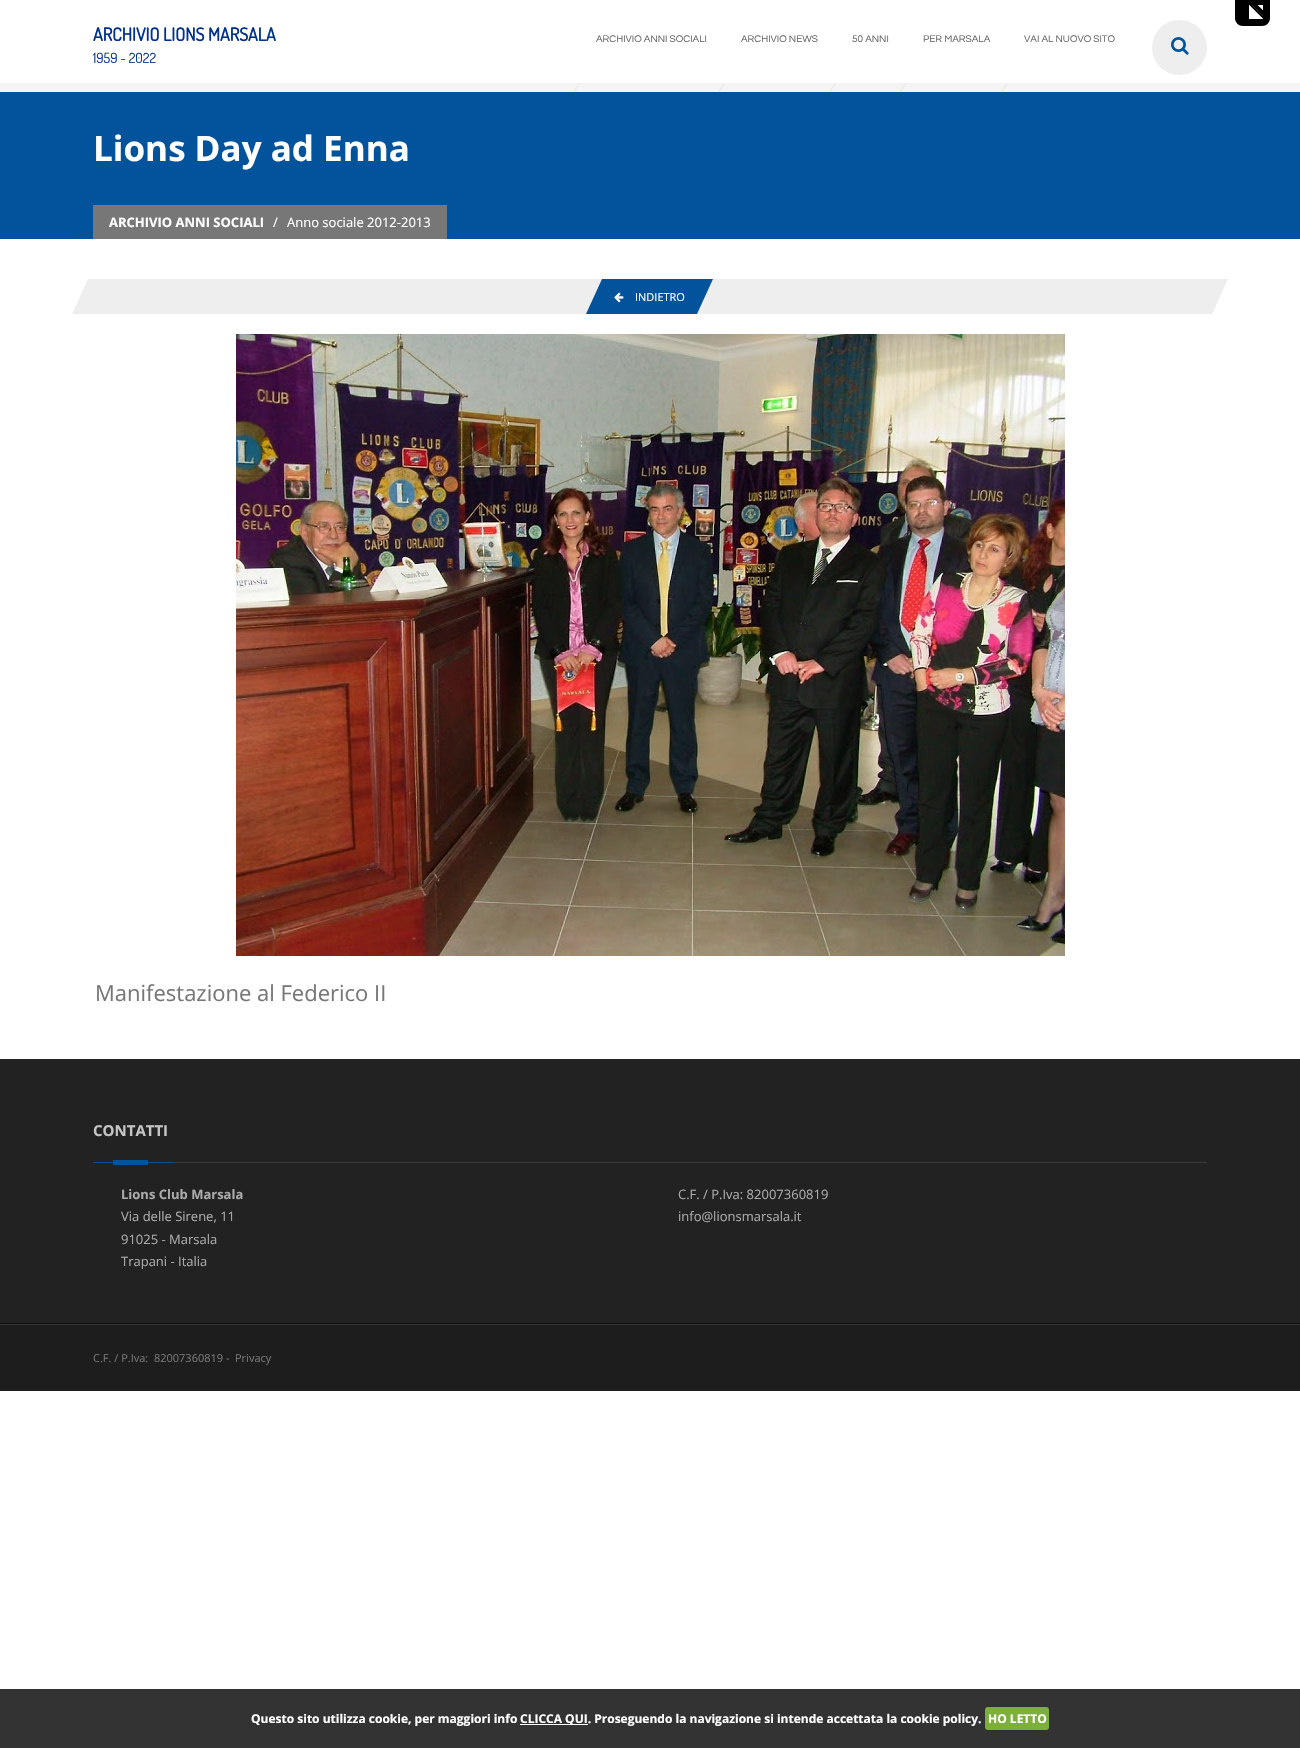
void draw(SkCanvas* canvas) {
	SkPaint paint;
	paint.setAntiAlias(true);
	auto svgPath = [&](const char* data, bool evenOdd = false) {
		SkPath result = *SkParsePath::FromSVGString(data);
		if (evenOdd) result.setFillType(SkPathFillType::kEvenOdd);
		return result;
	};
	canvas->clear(0xffffffff);
	paint.setColor(0xff000000);
	canvas->drawPath(svgPath("M1235 0H1270V18C1270 22.5 1266.5 26 1262 26H1243C1238.5 26 1235 22.5 1235 18Z"), paint);
	canvas->drawImageRect(SkImages::DeferredFromEncodedData(SkData::MakeFromFileName("img1.png")), SkRect::MakeXYWH(1249, 5, 14, 14), SkSamplingOptions());
	paint.setColor(0xfff4f4f4);
	canvas->drawRect(SkRect::MakeXYWH(0, 83, 1300, 9), paint);
	SkFont f1(fontMgr->matchFamilyStyle("Dosis", SkFontStyle::Bold()), 18);
	f1.setSubpixel(true);
	paint.setColor(0xff00328a);
	canvas->drawString("ARCHIVIO LIONS MARSALA", 93, 41, f1, paint);
	SkFont f2(fontMgr->matchFamilyStyle("Dosis", SkFontStyle::Normal()), 14);
	f2.setSubpixel(true);
	canvas->drawString("1959 - 2022", 93, 63, f2, paint);
	SkFont f3(fontMgr->matchFamilyStyle("Questrial", SkFontStyle::Normal()), 10);
	f3.setSubpixel(true);
	paint.setColor(0xff666666);
	canvas->drawString("ARCHIVIO ANNI SOCIALI", 596, 42, f3, paint);
	paint.setColor(0xffe4e4e4);
	canvas->drawPath(svgPath("M579.5 83H580.5L574 92H573Z"), paint);
	paint.setColor(0xff666666);
	canvas->drawString("ARCHIVIO NEWS", 741, 42, f3, paint);
	paint.setColor(0xffe4e4e4);
	canvas->drawPath(svgPath("M724 83H725L719 92H718Z"), paint);
	paint.setColor(0xff666666);
	canvas->drawString("50 ANNI", 852, 42, f3, paint);
	paint.setColor(0xffe4e4e4);
	canvas->drawPath(svgPath("M835 83H836L830 92H829Z"), paint);
	paint.setColor(0xff666666);
	canvas->drawString("PER MARSALA", 923, 42, f3, paint);
	paint.setColor(0xffe4e4e4);
	canvas->drawPath(svgPath("M906 83H907L900.5 92H899.5Z"), paint);
	paint.setColor(0xff666666);
	canvas->drawString("VAI AL NUOVO SITO", 1024, 42, f3, paint);
	paint.setColor(0xffe4e4e4);
	canvas->drawPath(svgPath("M1007 83H1008L1002 92H1001Z"), paint);
	paint.setColor(0xffeeeeee);
	canvas->drawCircle(1179.5, 47.5, 27.5, paint);
	canvas->drawImageRect(SkImages::DeferredFromEncodedData(SkData::MakeFromFileName("img2.png")), SkRect::MakeXYWH(1171, 37, 18, 18), SkSamplingOptions());
	paint.setColor(0xff02539c);
	canvas->drawRect(SkRect::MakeXYWH(0, 92, 1300, 147), paint);
	SkFont f4(fontMgr->matchFamilyStyle("Open Sans", SkFontStyle::Bold()), 35);
	f4.setSubpixel(true);
	paint.setColor(0xffffffff);
	canvas->drawString("Lions Day ad Enna", 93, 161, f4, paint);
	paint.setColor(0xff777777);
	canvas->drawRect(SkRect::MakeXYWH(93, 205, 354, 34), paint);
	SkFont f5(fontMgr->matchFamilyStyle("Open Sans", SkFontStyle::Bold()), 13);
	f5.setSubpixel(true);
	paint.setColor(0xffffffff);
	canvas->drawString("ARCHIVIO ANNI SOCIALI", 109, 227, f5, paint);
	SkFont f6(fontMgr->matchFamilyStyle("Open Sans", SkFontStyle::Normal()), 13);
	f6.setSubpixel(true);
	canvas->drawString("/", 273, 227, f6, paint);
	canvas->drawString("Anno sociale 2012-2013", 287, 227, f6, paint);
	paint.setColor(0xffeeeeee);
	canvas->drawPath(svgPath("M88 279H1228L1212 314H72Z"), paint);
	paint.setColor(0xff02539c);
	canvas->drawPath(svgPath("M602 279H713L697 314H586Z"), paint);
	canvas->drawImageRect(SkImages::DeferredFromEncodedData(SkData::MakeFromFileName("img3.png")), SkRect::MakeXYWH(614, 292, 10, 11), SkSamplingOptions());
	SkFont f7(fontMgr->matchFamilyStyle("Open Sans", SkFontStyle::Normal()), 11);
	f7.setSubpixel(true);
	paint.setColor(0xffffffff);
	canvas->drawString("INDIETRO", 635, 301, f7, paint);
	canvas->drawImageRect(SkImages::DeferredFromEncodedData(SkData::MakeFromFileName("img4.png")), SkRect::MakeXYWH(236, 334, 829, 622), SkSamplingOptions());
	SkFont f8(fontMgr->matchFamilyStyle("Open Sans", SkFontStyle::Normal()), 22);
	f8.setSubpixel(true);
	paint.setColor(0xff777777);
	canvas->drawString("Manifestazione al Federico II", 95, 1001, f8, paint);
	paint.setColor(0xff222222);
	canvas->drawRect(SkRect::MakeXYWH(0, 1059, 1300, 264), paint);
	paint.setColor(0xff0f0f0f);
	canvas->drawRect(SkRect::MakeXYWH(0, 1323, 1300, 1), paint);
	paint.setColor(0xff3a3a3a);
	canvas->drawRect(SkRect::MakeXYWH(173, 1162, 1034, 1), paint);
	SkFont f9(fontMgr->matchFamilyStyle("Open Sans", SkFontStyle::Bold()), 15);
	f9.setSubpixel(true);
	paint.setColor(0xffc5c5c5);
	canvas->drawString("CONTATTI", 93, 1136, f9, paint);
	paint.setColor(0xff02539c);
	canvas->drawRect(SkRect::MakeXYWH(113, 1160, 35, 5), paint);
	canvas->drawRect(SkRect::MakeXYWH(93, 1162, 80, 1), paint);
	paint.setColor(0xffaaaaaa);
	canvas->drawString("Lions Club Marsala", 121, 1199, f5, paint);
	canvas->drawString("Via delle Sirene, 11", 121, 1221, f6, paint);
	canvas->drawString("91025 - Marsala", 121, 1244, f6, paint);
	canvas->drawString("Trapani - Italia", 121, 1266, f6, paint);
	canvas->drawString("C.F. / P.Iva: 82007360819", 678, 1199, f6, paint);
	canvas->drawString("info@lionsmarsala.it", 678, 1221, f6, paint);
	paint.setColor(0xff1d1d1d);
	canvas->drawRect(SkRect::MakeXYWH(0, 1325, 1300, 66), paint);
	paint.setColor(0xff363636);
	canvas->drawRect(SkRect::MakeXYWH(0, 1324, 1300, 1), paint);
	paint.setColor(0xff777777);
	canvas->drawString("C.F. / P.Iva:  82007360819", 93, 1362, f7, paint);
	canvas->drawString("-", 226, 1362, f7, paint);
	canvas->drawString("Privacy", 235, 1362, f7, paint);
	paint.setColor(0xff333333);
	canvas->drawRect(SkRect::MakeXYWH(0, 1689, 1300, 59), paint);
	SkFont f10(fontMgr->matchFamilyStyle("Open Sans", SkFontStyle::Bold()), 12);
	f10.setSubpixel(true);
	paint.setColor(0xffffffff);
	canvas->drawString("Questo sito utilizza cookie, per maggiori info", 251, 1723, f10, paint);
	canvas->drawRect(SkRect::MakeXYWH(520, 1724, 68, 1), paint);
	canvas->drawString("CLICCA QUI. Proseguendo la navigazione si intende accettata la cookie policy.", 520, 1723, f10, paint);
	paint.setColor(0x40000000);
	paint.setMaskFilter(SkMaskFilter::MakeBlur(kNormal_SkBlurStyle, 1));
	canvas->drawRoundRect(SkRect::MakeXYWH(985, 1707, 64, 23), 3, 3, paint);
	paint.setMaskFilter(nullptr);
	paint.setColor(0xff7daf3b);
	canvas->drawRoundRect(SkRect::MakeXYWH(985, 1707, 64, 23), 3, 3, paint);
	paint.setColor(0xffffffff);
	canvas->drawString("HO LETTO", 988, 1723, f10, paint);
}
